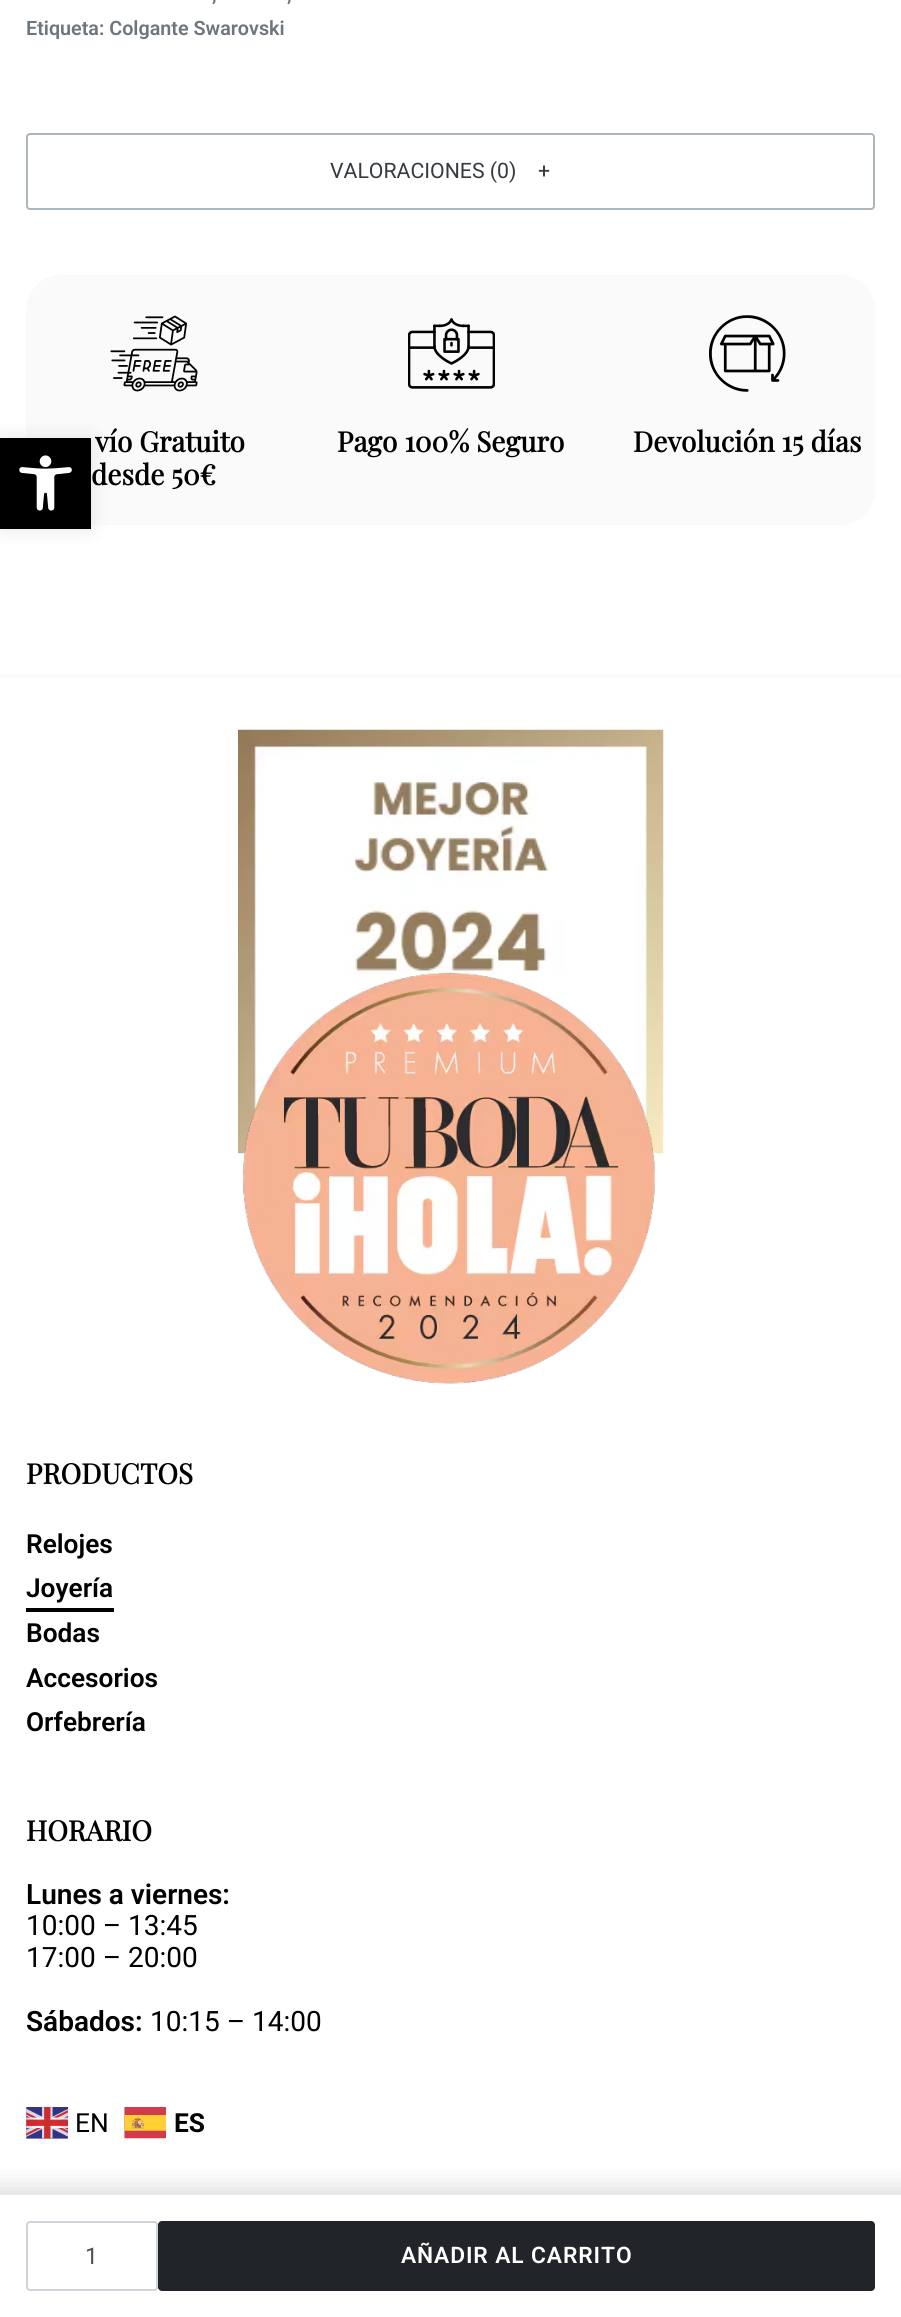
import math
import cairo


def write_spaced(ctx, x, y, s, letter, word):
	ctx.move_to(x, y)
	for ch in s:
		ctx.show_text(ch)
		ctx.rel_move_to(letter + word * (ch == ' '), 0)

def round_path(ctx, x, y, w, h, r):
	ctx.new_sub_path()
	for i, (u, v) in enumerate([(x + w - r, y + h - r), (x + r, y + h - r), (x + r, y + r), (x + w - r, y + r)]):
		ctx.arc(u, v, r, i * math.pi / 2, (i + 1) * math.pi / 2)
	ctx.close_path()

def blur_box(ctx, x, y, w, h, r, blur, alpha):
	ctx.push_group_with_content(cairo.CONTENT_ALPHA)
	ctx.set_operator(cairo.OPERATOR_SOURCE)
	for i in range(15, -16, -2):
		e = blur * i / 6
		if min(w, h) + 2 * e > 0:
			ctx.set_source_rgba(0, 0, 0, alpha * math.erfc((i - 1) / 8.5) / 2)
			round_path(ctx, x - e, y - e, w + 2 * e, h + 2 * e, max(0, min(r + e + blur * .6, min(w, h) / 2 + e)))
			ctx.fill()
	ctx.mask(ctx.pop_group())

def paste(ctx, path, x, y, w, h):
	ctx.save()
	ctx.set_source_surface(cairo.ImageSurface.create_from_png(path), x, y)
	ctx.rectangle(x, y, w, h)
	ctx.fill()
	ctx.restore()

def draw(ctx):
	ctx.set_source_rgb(1, 1, 1)
	ctx.paint()
	ctx.select_font_face('Roboto SemiBold')
	ctx.set_font_size(19.75)
	ctx.set_source_rgb(0.427, 0.459, 0.494)
	for x, y, s in [
		(212, 1, ','),
		(287, 1, ','),
		(26, 35, 'Etiqueta: Colgante Swarovski'),
	]:
		ctx.move_to(x, y)
		ctx.show_text(s)
	round_path(ctx, 27, 134, 847, 75, 3)
	ctx.set_source_rgb(0.678, 0.71, 0.741)
	ctx.stroke()
	ctx.select_font_face('Roboto')
	ctx.set_font_size(21.25)
	ctx.set_source_rgb(0.208, 0.231, 0.255)
	ctx.move_to(330, 178)
	ctx.show_text('VALORACIONES (0)')
	ctx.move_to(538, 178)
	ctx.show_text('+')
	ctx.set_source_rgb(0.98, 0.98, 0.98)
	round_path(ctx, 26, 275, 849, 250, 35)
	ctx.fill()
	paste(ctx, 'media/1.png', 110, 315, 88, 77)
	ctx.select_font_face('Playfair Display', cairo.FONT_SLANT_NORMAL, cairo.FONT_WEIGHT_BOLD)
	ctx.set_font_size(28)
	ctx.set_source_rgb(0, 0, 0)
	ctx.move_to(95, 452)
	ctx.show_text('vío Gratuito')
	ctx.move_to(91, 485)
	ctx.show_text('desde 50€')
	paste(ctx, 'media/2.png', 408, 318, 87, 71)
	ctx.move_to(337, 452)
	ctx.show_text('Pago 100% Seguro')
	paste(ctx, 'media/3.png', 709, 315, 77, 77)
	ctx.move_to(633, 452)
	ctx.show_text('Devolución 15 días')
	ctx.set_source_rgb(0.98, 0.98, 0.98)
	ctx.rectangle(0, 674, 901, 4)
	ctx.fill()
	paste(ctx, 'media/4.png', 238, 729, 426, 425)
	paste(ctx, 'media/5.png', 243, 972, 412, 412)
	ctx.set_source_rgb(0, 0, 0)
	ctx.move_to(26, 1484)
	ctx.show_text('PRODUCTOS')
	ctx.select_font_face('Roboto SemiBold')
	ctx.set_font_size(26.25)
	ctx.move_to(26, 1553)
	ctx.show_text('Relojes')
	ctx.move_to(26, 1597)
	ctx.show_text('Joyería')
	ctx.rectangle(26, 1608, 88, 4)
	ctx.fill()
	for x, y, s in [
		(26, 1642, 'Bodas'),
		(26, 1687, 'Accesorios'),
		(26, 1731, 'Orfebrería'),
	]:
		ctx.move_to(x, y)
		ctx.show_text(s)
	ctx.select_font_face('Playfair Display', cairo.FONT_SLANT_NORMAL, cairo.FONT_WEIGHT_BOLD)
	ctx.set_font_size(28)
	ctx.move_to(26, 1841)
	ctx.show_text('HORARIO')
	ctx.select_font_face('Roboto SemiBold')
	ctx.move_to(26, 1904)
	ctx.show_text('Lunes a viernes:')
	ctx.select_font_face('Roboto')
	ctx.move_to(26, 1935)
	ctx.show_text('10:00 – 13:45')
	ctx.move_to(26, 1967)
	ctx.show_text('17:00 – 20:00')
	ctx.select_font_face('Roboto SemiBold')
	ctx.move_to(26, 2031)
	ctx.show_text('Sábados:')
	ctx.select_font_face('Roboto')
	ctx.move_to(150, 2031)
	ctx.show_text('10:15 – 14:00')
	paste(ctx, 'media/6.png', 26, 2107, 42, 32)
	ctx.set_font_size(26.25)
	ctx.move_to(75, 2132)
	ctx.show_text('EN')
	paste(ctx, 'media/7.png', 124, 2107, 42, 32)
	ctx.select_font_face('Roboto', cairo.FONT_SLANT_NORMAL, cairo.FONT_WEIGHT_BOLD)
	ctx.move_to(174, 2132)
	ctx.show_text('ES')
	ctx.set_source_rgb(0, 0, 0)
	blur_box(ctx, 0, 438, 91, 91, 0, 9, 0.1)
	ctx.set_source_rgb(0, 0, 0)
	ctx.rectangle(0, 438, 91, 91)
	ctx.fill()
	paste(ctx, 'media/8.png', 19, 455, 53, 56)
	ctx.set_source_rgb(0, 0, 0)
	blur_box(ctx, -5, 2189, 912, 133, 0, 13, 0.15)
	ctx.set_source_rgb(1, 1, 1)
	ctx.rectangle(0, 2195, 901, 122)
	ctx.fill()
	round_path(ctx, 27, 2222, 130, 68, 3)
	ctx.set_source_rgb(0.808, 0.831, 0.855)
	ctx.stroke()
	ctx.select_font_face('Roboto')
	ctx.set_font_size(23)
	ctx.set_source_rgb(0.282, 0.31, 0.337)
	ctx.move_to(85, 2264)
	ctx.show_text('1')
	ctx.set_source_rgb(0.129, 0.145, 0.161)
	round_path(ctx, 158, 2221, 717, 70, 4)
	ctx.fill()
	ctx.select_font_face('Roboto SemiBold')
	ctx.set_font_size(22.75)
	ctx.set_source_rgb(1, 1, 1)
	write_spaced(ctx, 401, 2263, 'AÑADIR AL CARRITO', 0.9, 0)


surface = cairo.ImageSurface(cairo.FORMAT_RGB24, 901, 2317)
ctx = cairo.Context(surface)
options = cairo.FontOptions()
options.set_hint_metrics(cairo.HINT_METRICS_OFF)
options.set_hint_style(cairo.HINT_STYLE_NONE)
ctx.set_font_options(options)
ctx.set_miter_limit(4)
draw(ctx)
surface.write_to_png('image.png')
